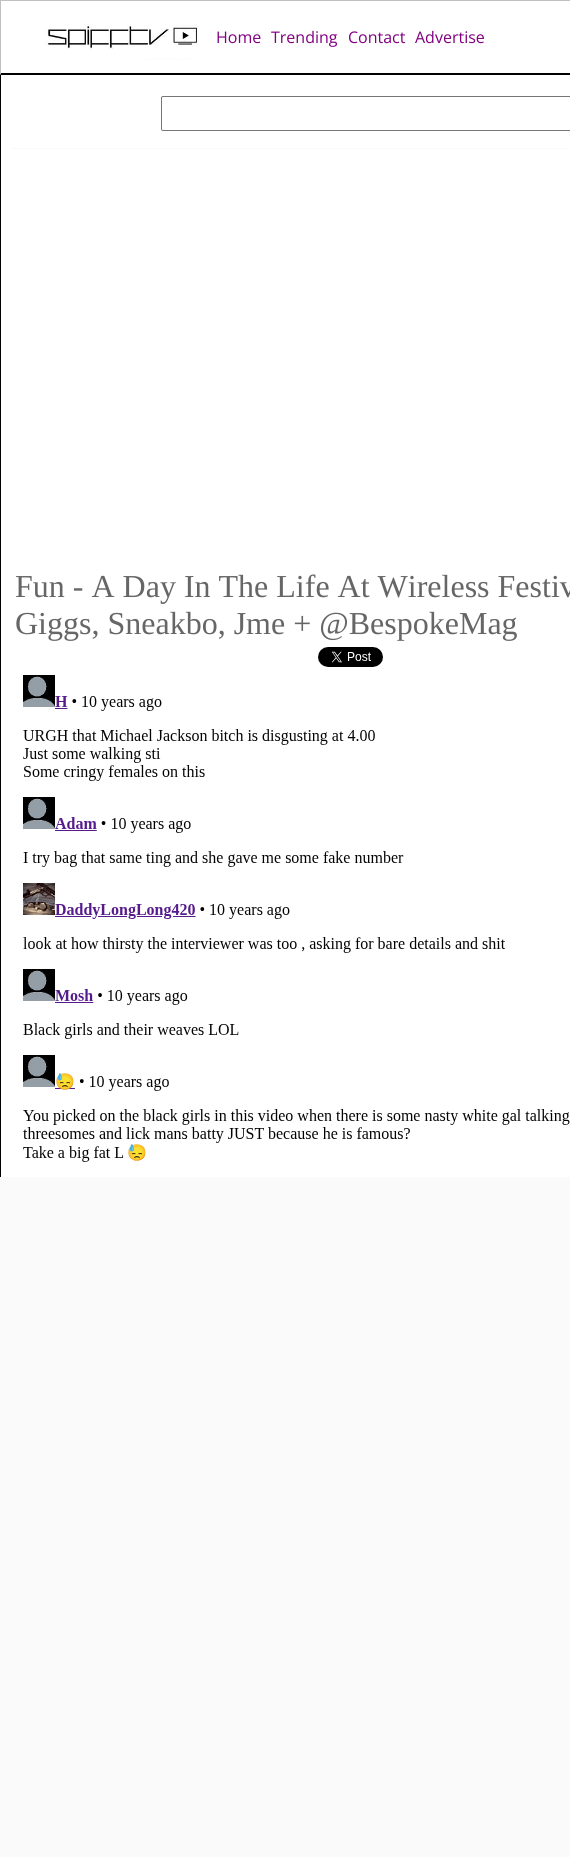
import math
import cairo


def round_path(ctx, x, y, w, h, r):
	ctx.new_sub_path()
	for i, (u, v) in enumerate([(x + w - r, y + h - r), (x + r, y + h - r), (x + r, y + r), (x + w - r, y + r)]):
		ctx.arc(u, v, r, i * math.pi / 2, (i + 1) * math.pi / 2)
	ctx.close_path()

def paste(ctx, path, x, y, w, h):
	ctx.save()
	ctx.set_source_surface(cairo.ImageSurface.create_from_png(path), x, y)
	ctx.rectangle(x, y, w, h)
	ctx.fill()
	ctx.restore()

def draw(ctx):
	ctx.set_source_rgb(0.98, 0.98, 0.98)
	ctx.paint()
	ctx.set_source_rgb(1, 1, 1)
	ctx.rectangle(1, 1, 569, 72)
	ctx.fill()
	ctx.set_source_rgb(0.753, 0.753, 0.753)
	ctx.rectangle(0, 0, 570, 1)
	ctx.fill()
	ctx.set_source_rgb(0, 0, 0)
	ctx.new_path()
	ctx.move_to(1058, 75)
	ctx.line_to(0, 75)
	ctx.line_to(1, 73)
	ctx.line_to(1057, 73)
	ctx.close_path()
	ctx.fill()
	ctx.set_source_rgb(0.753, 0.753, 0.753)
	ctx.new_path()
	ctx.move_to(0, 75)
	ctx.line_to(0, 0)
	ctx.line_to(1, 1)
	ctx.line_to(1, 73)
	ctx.close_path()
	ctx.fill()
	paste(ctx, 'media/1.png', 45, 24, 154, 36)
	ctx.select_font_face('Open Sans')
	ctx.set_font_size(16)
	ctx.set_source_rgb(0.502, 0, 0.502)
	for x, y, s in [
		(216, 43, 'Home'),
		(271, 43, 'Trending'),
		(348, 43, 'Contact'),
		(415, 43, 'Advertise'),
	]:
		ctx.move_to(x, y)
		ctx.show_text(s)
	ctx.set_source_rgb(1, 1, 1)
	ctx.rectangle(1, 75, 569, 1102)
	ctx.fill()
	ctx.set_source_rgb(0, 0, 0)
	ctx.rectangle(0, 75, 1, 1102)
	ctx.fill()
	ctx.set_source_rgb(0.98, 0.98, 0.98)
	ctx.rectangle(11, 148, 559, 1)
	ctx.fill()
	round_path(ctx, 161.5, 96.5, 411, 34, 1.5)
	ctx.set_source_rgb(0.463, 0.463, 0.463)
	ctx.set_line_width(1)
	ctx.stroke()
	ctx.select_font_face('Liberation Serif')
	ctx.set_font_size(32)
	ctx.set_source_rgb(0.4, 0.4, 0.4)
	ctx.move_to(15, 597)
	ctx.show_text('Fun - A Day In The Life At Wireless Festiv')
	ctx.move_to(15, 634)
	ctx.show_text('Giggs, Sneakbo, Jme + @BespokeMag')
	paste(ctx, 'media/2.png', 318, 647, 65, 20)
	paste(ctx, 'media/3.png', 23, 675, 547, 487)


surface = cairo.ImageSurface(cairo.FORMAT_RGB24, 570, 1857)
ctx = cairo.Context(surface)
options = cairo.FontOptions()
options.set_hint_metrics(cairo.HINT_METRICS_OFF)
options.set_hint_style(cairo.HINT_STYLE_NONE)
ctx.set_font_options(options)
ctx.set_miter_limit(4)
draw(ctx)
surface.write_to_png('image.png')
